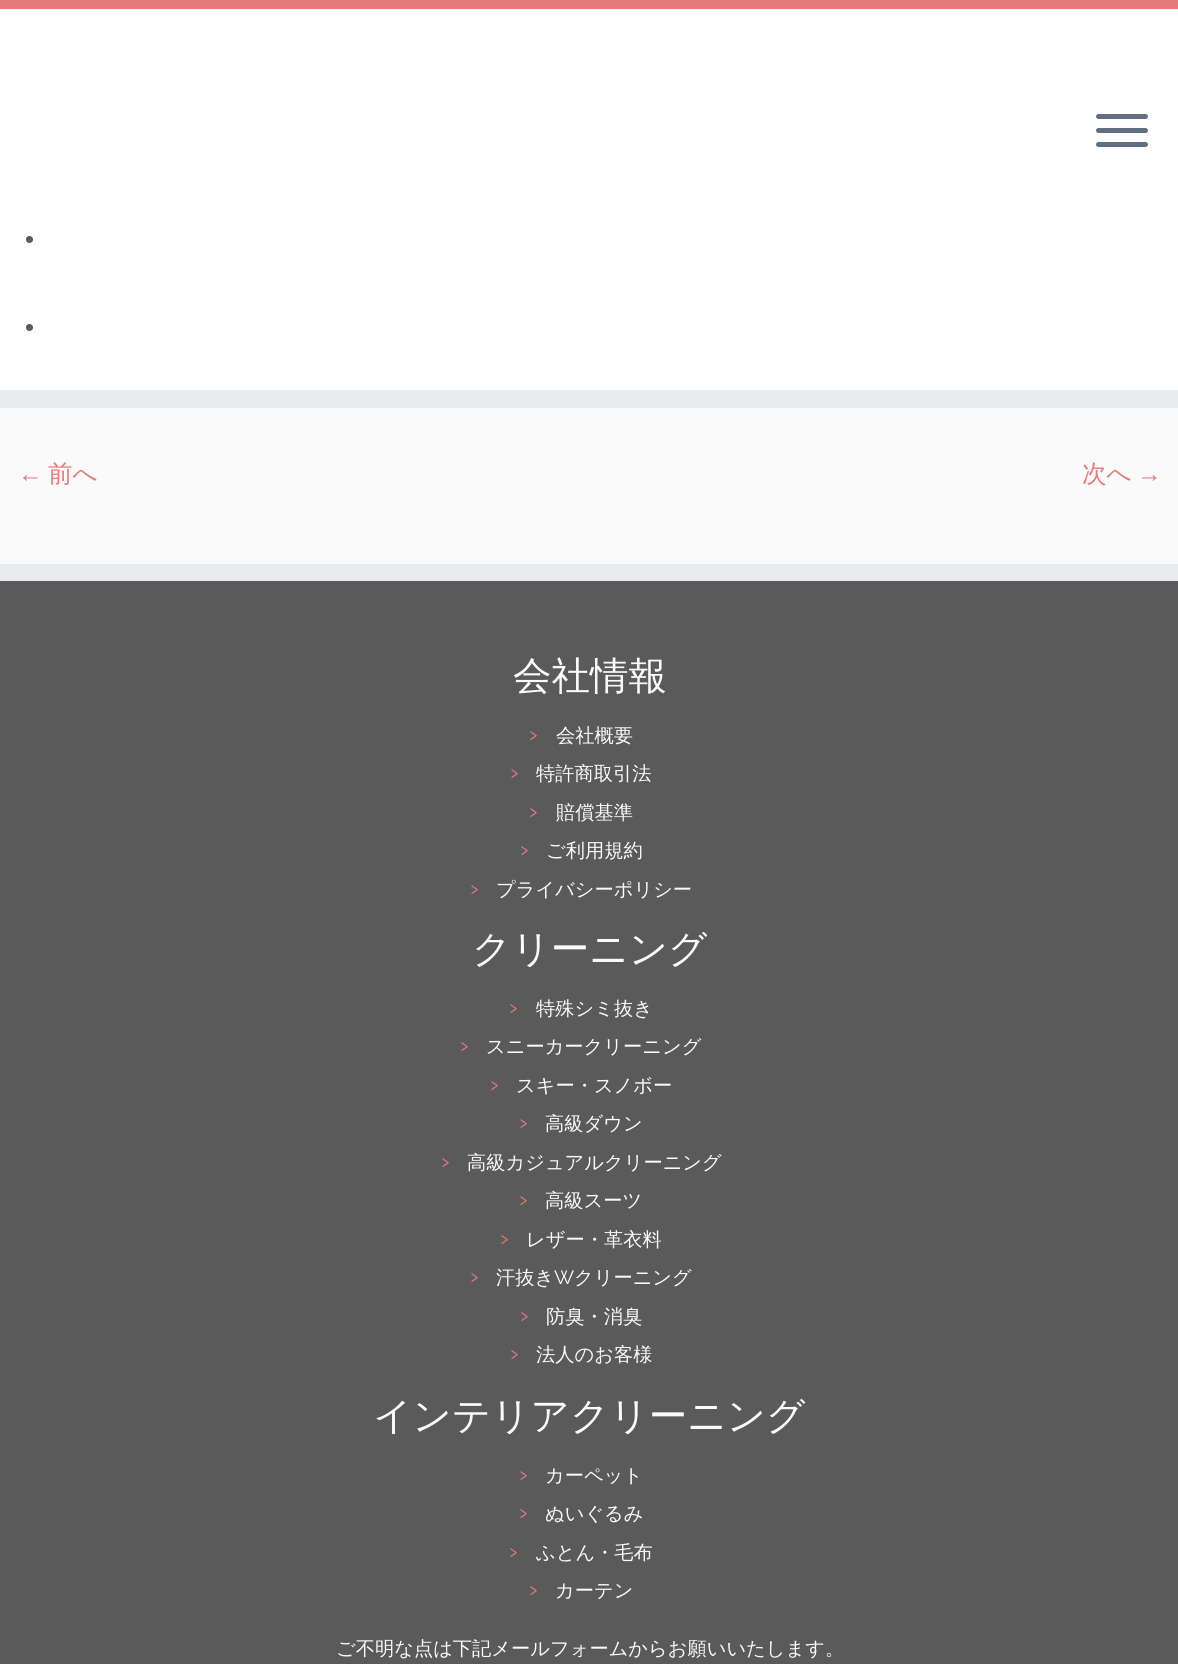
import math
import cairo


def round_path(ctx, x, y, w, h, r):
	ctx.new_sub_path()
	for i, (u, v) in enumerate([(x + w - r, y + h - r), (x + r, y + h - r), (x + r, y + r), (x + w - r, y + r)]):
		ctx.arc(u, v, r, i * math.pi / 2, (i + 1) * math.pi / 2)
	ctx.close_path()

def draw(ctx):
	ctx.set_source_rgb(0.98, 0.98, 0.98)
	ctx.paint()
	ctx.set_source_rgb(1, 1, 1)
	ctx.rectangle(0, 9, 1178, 381)
	ctx.fill()
	ctx.set_source_rgb(0.906, 0.475, 0.478)
	ctx.rectangle(0, 0, 1178, 9)
	ctx.fill()
	ctx.set_source_rgb(0.914, 0.918, 0.933)
	ctx.rectangle(0, 390, 1178, 18)
	ctx.fill()
	ctx.set_source_rgb(0.373, 0.435, 0.506)
	round_path(ctx, 1096, 114, 52, 5, 2.5)
	ctx.fill()
	round_path(ctx, 1096, 128, 52, 5, 2.5)
	ctx.fill()
	round_path(ctx, 1096, 142, 52, 5, 2.5)
	ctx.fill()
	ctx.set_source_rgb(0.353, 0.353, 0.353)
	ctx.arc(29.5, 239.5, 3.5, 0, 2 * math.pi)
	ctx.fill()
	ctx.arc(29.5, 327.5, 3.5, 0, 2 * math.pi)
	ctx.fill()
	ctx.select_font_face('Liberation Serif')
	ctx.set_font_size(24.5)
	ctx.set_source_rgb(0.906, 0.475, 0.478)
	ctx.move_to(18, 482)
	ctx.show_text('←')
	ctx.select_font_face('WenQuanYi Zen Hei Medium')
	ctx.move_to(48, 482)
	ctx.show_text('前へ')
	ctx.move_to(1082, 482)
	ctx.show_text('次へ')
	ctx.select_font_face('Liberation Serif')
	ctx.move_to(1137, 482)
	ctx.show_text('→')
	ctx.set_source_rgb(0.353, 0.353, 0.353)
	ctx.rectangle(0, 581, 1178, 1083)
	ctx.fill()
	ctx.set_source_rgb(0.914, 0.918, 0.933)
	ctx.rectangle(0, 564, 1178, 17)
	ctx.fill()
	ctx.select_font_face('WenQuanYi Zen Hei Medium')
	ctx.set_font_size(38.5)
	ctx.set_source_rgb(0.98, 0.98, 0.98)
	ctx.move_to(513, 689)
	ctx.show_text('会社情報')
	ctx.select_font_face('Raleway Thin')
	ctx.set_font_size(24.5)
	ctx.set_source_rgb(0.906, 0.475, 0.478)
	ctx.move_to(529, 742)
	ctx.show_text('›')
	ctx.select_font_face('WenQuanYi Zen Hei Medium')
	ctx.set_font_size(19.25)
	ctx.set_source_rgb(0.98, 0.98, 0.98)
	ctx.move_to(556, 742)
	ctx.show_text('会社概要')
	ctx.select_font_face('Raleway Thin')
	ctx.set_font_size(24.5)
	ctx.set_source_rgb(0.906, 0.475, 0.478)
	ctx.move_to(510, 780)
	ctx.show_text('›')
	ctx.select_font_face('WenQuanYi Zen Hei Medium')
	ctx.set_font_size(19.25)
	ctx.set_source_rgb(0.98, 0.98, 0.98)
	ctx.move_to(536, 780)
	ctx.show_text('特許商取引法')
	ctx.select_font_face('Raleway Thin')
	ctx.set_font_size(24.5)
	ctx.set_source_rgb(0.906, 0.475, 0.478)
	ctx.move_to(529, 819)
	ctx.show_text('›')
	ctx.select_font_face('WenQuanYi Zen Hei Medium')
	ctx.set_font_size(19.25)
	ctx.set_source_rgb(0.98, 0.98, 0.98)
	ctx.move_to(556, 819)
	ctx.show_text('賠償基準')
	ctx.select_font_face('Raleway Thin')
	ctx.set_font_size(24.5)
	ctx.set_source_rgb(0.906, 0.475, 0.478)
	ctx.move_to(520, 857)
	ctx.show_text('›')
	ctx.select_font_face('WenQuanYi Zen Hei Medium')
	ctx.set_font_size(19.25)
	ctx.set_source_rgb(0.98, 0.98, 0.98)
	ctx.move_to(546, 857)
	ctx.show_text('ご利用規約')
	ctx.select_font_face('Raleway Thin')
	ctx.set_font_size(24.5)
	ctx.set_source_rgb(0.906, 0.475, 0.478)
	ctx.move_to(470, 896)
	ctx.show_text('›')
	ctx.select_font_face('WenQuanYi Zen Hei Medium')
	ctx.set_font_size(19.25)
	ctx.set_source_rgb(0.98, 0.98, 0.98)
	ctx.move_to(496, 896)
	ctx.show_text('プライバシーポリシー')
	ctx.set_font_size(38.5)
	ctx.move_to(472, 962)
	ctx.show_text('クリーニング')
	ctx.select_font_face('Raleway Thin')
	ctx.set_font_size(24.5)
	ctx.set_source_rgb(0.906, 0.475, 0.478)
	ctx.move_to(509, 1015)
	ctx.show_text('›')
	ctx.select_font_face('WenQuanYi Zen Hei Medium')
	ctx.set_font_size(19.25)
	ctx.set_source_rgb(0.98, 0.98, 0.98)
	ctx.move_to(536, 1015)
	ctx.show_text('特殊シミ抜き')
	ctx.select_font_face('Raleway Thin')
	ctx.set_font_size(24.5)
	ctx.set_source_rgb(0.906, 0.475, 0.478)
	ctx.move_to(460, 1053)
	ctx.show_text('›')
	ctx.select_font_face('WenQuanYi Zen Hei Medium')
	ctx.set_font_size(19.25)
	ctx.set_source_rgb(0.98, 0.98, 0.98)
	ctx.move_to(486, 1053)
	ctx.show_text('スニーカークリーニング')
	ctx.select_font_face('Raleway Thin')
	ctx.set_font_size(24.5)
	ctx.set_source_rgb(0.906, 0.475, 0.478)
	ctx.move_to(490, 1092)
	ctx.show_text('›')
	ctx.select_font_face('WenQuanYi Zen Hei Medium')
	ctx.set_font_size(19.25)
	ctx.set_source_rgb(0.98, 0.98, 0.98)
	ctx.move_to(516, 1092)
	ctx.show_text('スキー・スノボー')
	ctx.select_font_face('Raleway Thin')
	ctx.set_font_size(24.5)
	ctx.set_source_rgb(0.906, 0.475, 0.478)
	ctx.move_to(519, 1130)
	ctx.show_text('›')
	ctx.select_font_face('WenQuanYi Zen Hei Medium')
	ctx.set_font_size(19.25)
	ctx.set_source_rgb(0.98, 0.98, 0.98)
	ctx.move_to(545, 1130)
	ctx.show_text('高級ダウン')
	ctx.select_font_face('Raleway Thin')
	ctx.set_font_size(24.5)
	ctx.set_source_rgb(0.906, 0.475, 0.478)
	ctx.move_to(441, 1169)
	ctx.show_text('›')
	ctx.select_font_face('WenQuanYi Zen Hei Medium')
	ctx.set_font_size(19.25)
	ctx.set_source_rgb(0.98, 0.98, 0.98)
	ctx.move_to(467, 1169)
	ctx.show_text('高級カジュアルクリーニング')
	ctx.select_font_face('Raleway Thin')
	ctx.set_font_size(24.5)
	ctx.set_source_rgb(0.906, 0.475, 0.478)
	ctx.move_to(519, 1207)
	ctx.show_text('›')
	ctx.select_font_face('WenQuanYi Zen Hei Medium')
	ctx.set_font_size(19.25)
	ctx.set_source_rgb(0.98, 0.98, 0.98)
	ctx.move_to(545, 1207)
	ctx.show_text('高級スーツ')
	ctx.select_font_face('Raleway Thin')
	ctx.set_font_size(24.5)
	ctx.set_source_rgb(0.906, 0.475, 0.478)
	ctx.move_to(500, 1246)
	ctx.show_text('›')
	ctx.select_font_face('WenQuanYi Zen Hei Medium')
	ctx.set_font_size(19.25)
	ctx.set_source_rgb(0.98, 0.98, 0.98)
	ctx.move_to(526, 1246)
	ctx.show_text('レザー・革衣料')
	ctx.select_font_face('Raleway Thin')
	ctx.set_font_size(24.5)
	ctx.set_source_rgb(0.906, 0.475, 0.478)
	ctx.move_to(470, 1284)
	ctx.show_text('›')
	ctx.select_font_face('WenQuanYi Zen Hei Medium')
	ctx.set_font_size(19.25)
	ctx.set_source_rgb(0.98, 0.98, 0.98)
	ctx.move_to(496, 1284)
	ctx.show_text('汗抜き')
	ctx.select_font_face('Raleway Thin')
	ctx.move_to(554, 1284)
	ctx.show_text('W')
	ctx.select_font_face('WenQuanYi Zen Hei Medium')
	ctx.move_to(574, 1284)
	ctx.show_text('クリーニング')
	ctx.select_font_face('Raleway Thin')
	ctx.set_font_size(24.5)
	ctx.set_source_rgb(0.906, 0.475, 0.478)
	ctx.move_to(520, 1323)
	ctx.show_text('›')
	ctx.select_font_face('WenQuanYi Zen Hei Medium')
	ctx.set_font_size(19.25)
	ctx.set_source_rgb(0.98, 0.98, 0.98)
	ctx.move_to(546, 1323)
	ctx.show_text('防臭・消臭')
	ctx.select_font_face('Raleway Thin')
	ctx.set_font_size(24.5)
	ctx.set_source_rgb(0.906, 0.475, 0.478)
	ctx.move_to(510, 1361)
	ctx.show_text('›')
	ctx.select_font_face('WenQuanYi Zen Hei Medium')
	ctx.set_font_size(19.25)
	ctx.set_source_rgb(0.98, 0.98, 0.98)
	ctx.move_to(536, 1361)
	ctx.show_text('法人のお客様')
	ctx.set_font_size(38.5)
	ctx.move_to(373, 1429)
	ctx.show_text('インテリアクリーニング')
	ctx.select_font_face('Raleway Thin')
	ctx.set_font_size(24.5)
	ctx.set_source_rgb(0.906, 0.475, 0.478)
	ctx.move_to(519, 1482)
	ctx.show_text('›')
	ctx.select_font_face('WenQuanYi Zen Hei Medium')
	ctx.set_font_size(19.25)
	ctx.set_source_rgb(0.98, 0.98, 0.98)
	ctx.move_to(545, 1482)
	ctx.show_text('カーペット')
	ctx.select_font_face('Raleway Thin')
	ctx.set_font_size(24.5)
	ctx.set_source_rgb(0.906, 0.475, 0.478)
	ctx.move_to(519, 1520)
	ctx.show_text('›')
	ctx.select_font_face('WenQuanYi Zen Hei Medium')
	ctx.set_font_size(19.25)
	ctx.set_source_rgb(0.98, 0.98, 0.98)
	ctx.move_to(545, 1520)
	ctx.show_text('ぬいぐるみ')
	ctx.select_font_face('Raleway Thin')
	ctx.set_font_size(24.5)
	ctx.set_source_rgb(0.906, 0.475, 0.478)
	ctx.move_to(509, 1559)
	ctx.show_text('›')
	ctx.select_font_face('WenQuanYi Zen Hei Medium')
	ctx.set_font_size(19.25)
	ctx.set_source_rgb(0.98, 0.98, 0.98)
	ctx.move_to(536, 1559)
	ctx.show_text('ふとん・毛布')
	ctx.select_font_face('Raleway Thin')
	ctx.set_font_size(24.5)
	ctx.set_source_rgb(0.906, 0.475, 0.478)
	ctx.move_to(529, 1597)
	ctx.show_text('›')
	ctx.select_font_face('WenQuanYi Zen Hei Medium')
	ctx.set_font_size(19.25)
	ctx.set_source_rgb(0.98, 0.98, 0.98)
	ctx.move_to(555, 1597)
	ctx.show_text('カーテン')
	ctx.move_to(336, 1655)
	ctx.show_text('ご不明な点は下記メールフォームからお願いいたします。')


surface = cairo.ImageSurface(cairo.FORMAT_RGB24, 1178, 1664)
ctx = cairo.Context(surface)
options = cairo.FontOptions()
options.set_hint_metrics(cairo.HINT_METRICS_OFF)
options.set_hint_style(cairo.HINT_STYLE_NONE)
ctx.set_font_options(options)
ctx.set_miter_limit(4)
draw(ctx)
surface.write_to_png('image.png')
